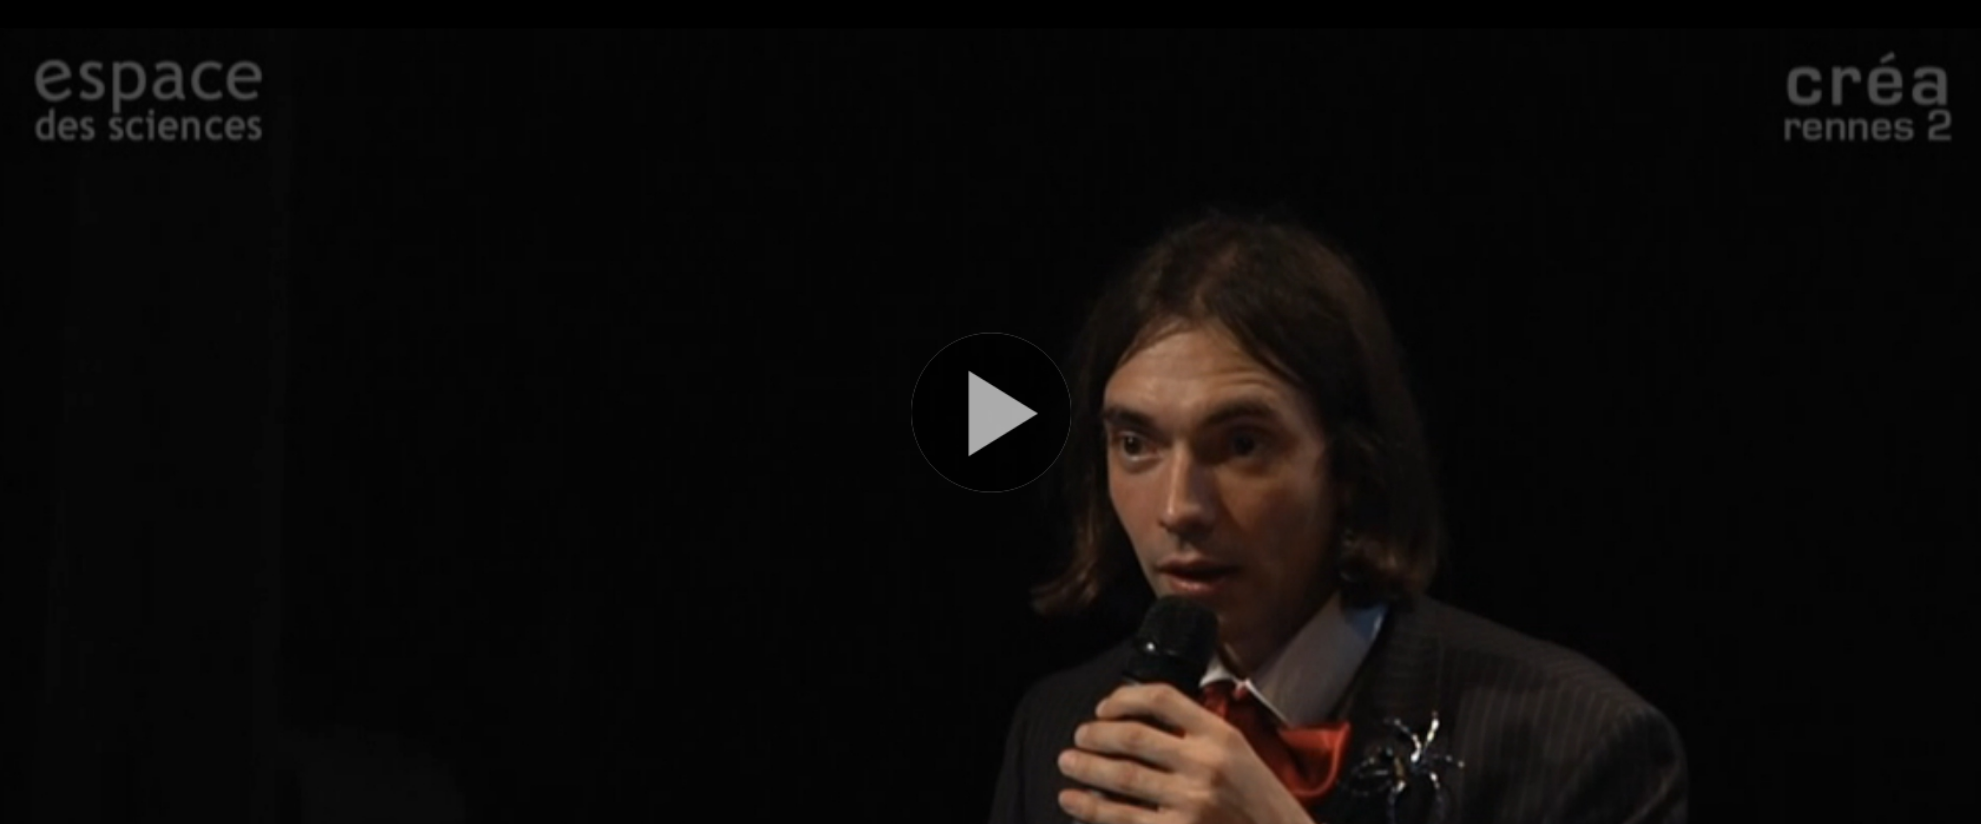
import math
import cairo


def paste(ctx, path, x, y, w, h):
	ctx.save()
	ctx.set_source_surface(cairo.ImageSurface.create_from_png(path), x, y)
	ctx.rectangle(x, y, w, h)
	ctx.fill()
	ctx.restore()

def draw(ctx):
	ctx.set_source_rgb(0, 0, 0)
	ctx.paint()
	paste(ctx, 'media/1.png', 0, 28, 1981, 796)
	paste(ctx, 'media/2.png', 911, 332, 161, 161)


surface = cairo.ImageSurface(cairo.FORMAT_RGB24, 1981, 824)
ctx = cairo.Context(surface)
options = cairo.FontOptions()
options.set_hint_metrics(cairo.HINT_METRICS_OFF)
options.set_hint_style(cairo.HINT_STYLE_NONE)
ctx.set_font_options(options)
ctx.set_miter_limit(4)
draw(ctx)
surface.write_to_png('image.png')
